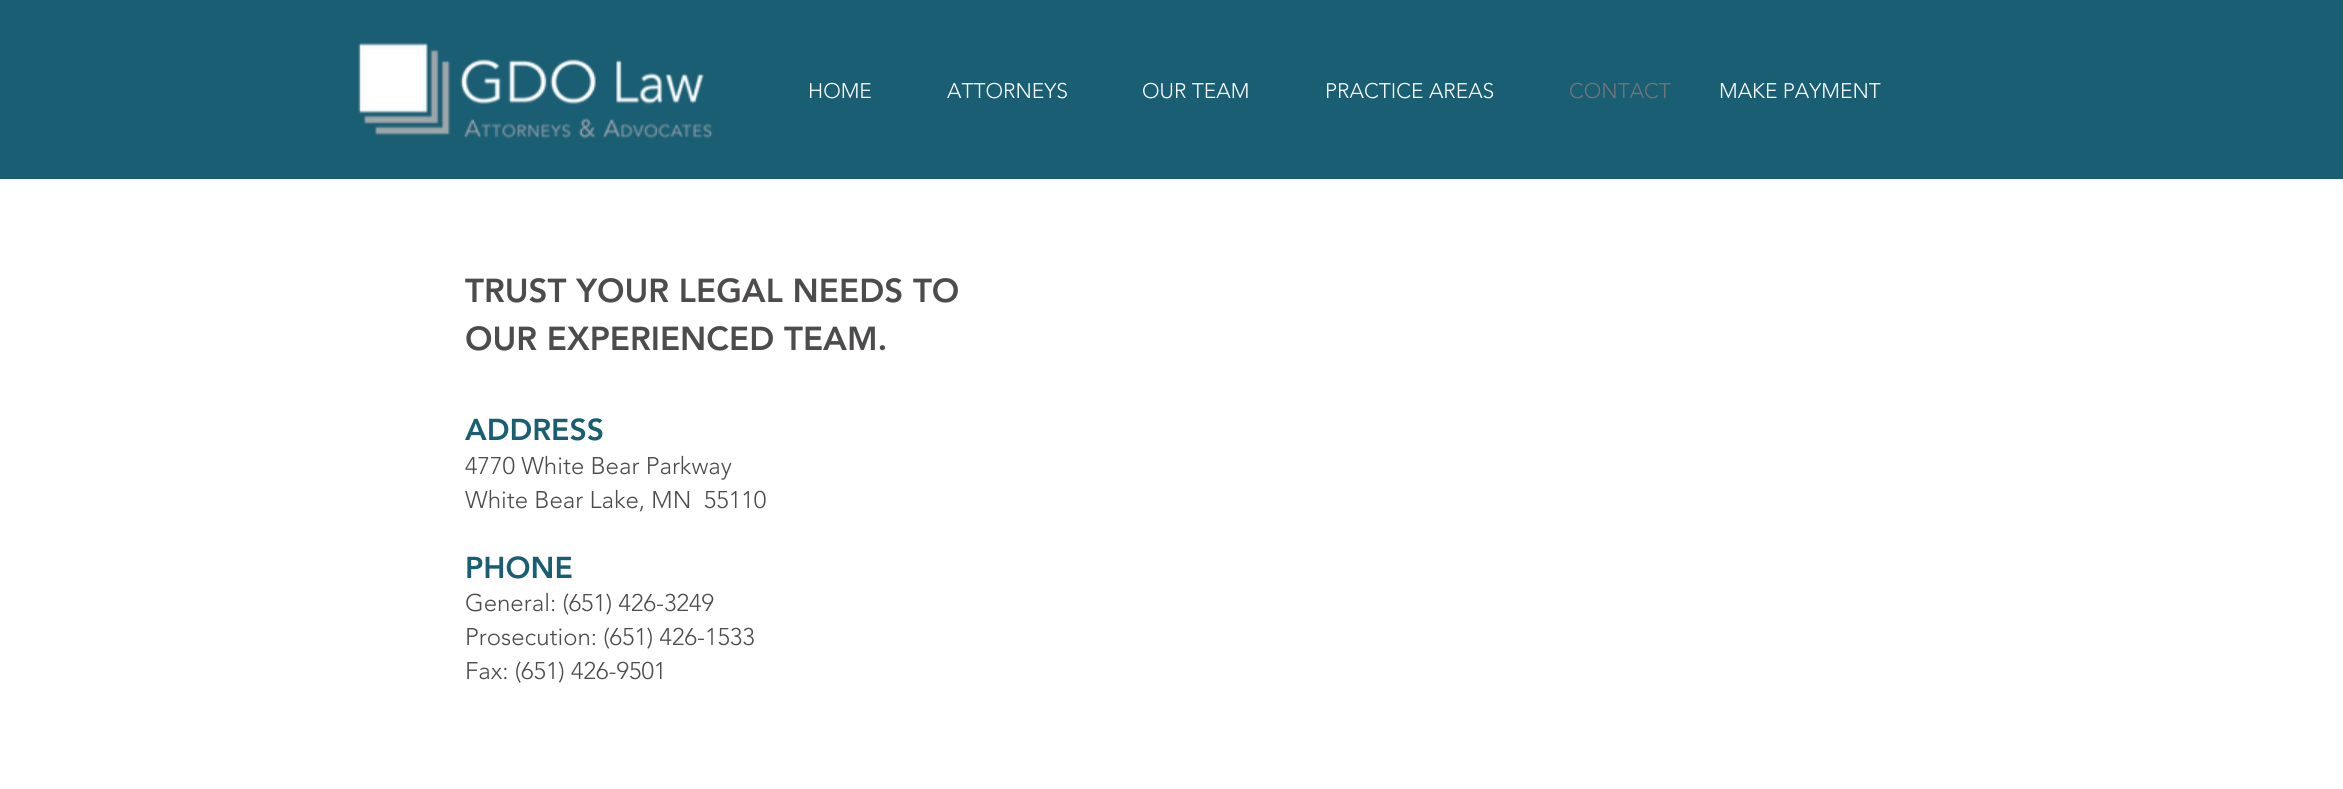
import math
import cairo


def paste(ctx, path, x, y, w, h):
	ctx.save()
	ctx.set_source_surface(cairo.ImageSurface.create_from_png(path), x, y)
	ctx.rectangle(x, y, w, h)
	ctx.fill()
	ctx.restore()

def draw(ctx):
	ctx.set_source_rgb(1, 1, 1)
	ctx.paint()
	ctx.set_source_rgb(0.102, 0.369, 0.451)
	ctx.rectangle(0, 0, 2343, 179)
	ctx.fill()
	paste(ctx, 'media/1.png', 358, 42, 355, 97)
	ctx.select_font_face('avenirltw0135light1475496 Light')
	ctx.set_font_size(21)
	ctx.set_source_rgb(1, 1, 1)
	for x, y, s in [
		(808, 98, 'HOME'),
		(947, 98, 'ATTORNEYS'),
		(1142, 98, 'OUR TEAM'),
		(1325, 98, 'PRACTICE AREAS'),
	]:
		ctx.move_to(x, y)
		ctx.show_text(s)
	ctx.set_source_rgb(0.459, 0.459, 0.459)
	ctx.move_to(1569, 98)
	ctx.show_text('CONTACT')
	ctx.set_source_rgb(1, 1, 1)
	ctx.move_to(1719, 98)
	ctx.show_text('MAKE PAYMENT')
	ctx.select_font_face('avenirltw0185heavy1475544 Black')
	ctx.set_font_size(33)
	ctx.set_source_rgb(0.302, 0.294, 0.294)
	ctx.move_to(465, 302)
	ctx.show_text('TRUST YOUR LEGAL NEEDS TO')
	ctx.move_to(465, 350)
	ctx.show_text('OUR EXPERIENCED TEAM.')
	ctx.set_font_size(30)
	ctx.set_source_rgb(0.102, 0.369, 0.451)
	ctx.move_to(465, 440)
	ctx.show_text('ADDRESS')
	ctx.select_font_face('avenirltw0135light1475496 Light')
	ctx.set_font_size(24)
	ctx.set_source_rgb(0.302, 0.294, 0.294)
	ctx.move_to(465, 474)
	ctx.show_text('4770 White Bear Parkway')
	ctx.move_to(465, 508)
	ctx.show_text('White Bear Lake, MN  55110')
	ctx.select_font_face('avenirltw0185heavy1475544 Black')
	ctx.set_font_size(30)
	ctx.set_source_rgb(0.102, 0.369, 0.451)
	ctx.move_to(465, 578)
	ctx.show_text('PHONE')
	ctx.select_font_face('avenirltw0135light1475496 Light')
	ctx.set_font_size(24)
	ctx.set_source_rgb(0.302, 0.294, 0.294)
	for x, y, s in [
		(465, 611, 'General: (651) 426-3249'),
		(465, 645, 'Prosecution: (651) 426-1533'),
		(465, 679, 'Fax: (651) 426-9501'),
	]:
		ctx.move_to(x, y)
		ctx.show_text(s)


surface = cairo.ImageSurface(cairo.FORMAT_RGB24, 2343, 789)
ctx = cairo.Context(surface)
options = cairo.FontOptions()
options.set_hint_metrics(cairo.HINT_METRICS_OFF)
options.set_hint_style(cairo.HINT_STYLE_NONE)
ctx.set_font_options(options)
ctx.set_miter_limit(4)
draw(ctx)
surface.write_to_png('image.png')
